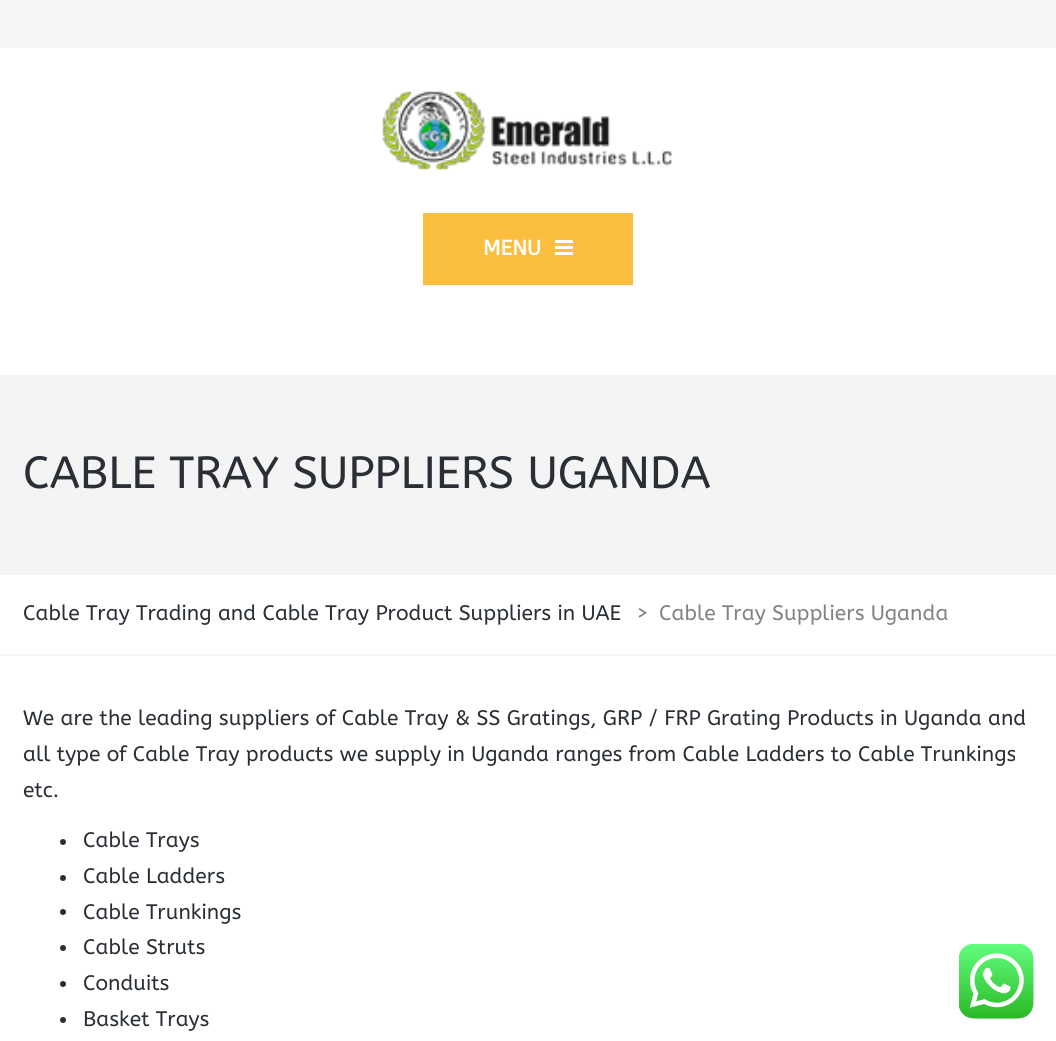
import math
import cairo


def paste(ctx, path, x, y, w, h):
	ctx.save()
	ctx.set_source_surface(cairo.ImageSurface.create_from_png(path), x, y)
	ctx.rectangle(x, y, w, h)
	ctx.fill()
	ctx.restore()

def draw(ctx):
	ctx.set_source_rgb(1, 1, 1)
	ctx.paint()
	ctx.set_source_rgb(0.961, 0.961, 0.961)
	ctx.rectangle(0, 0, 1056, 48)
	ctx.fill()
	paste(ctx, 'media/1.png', 382, 91, 290, 79)
	ctx.set_source_rgb(0.984, 0.745, 0.247)
	ctx.rectangle(423, 213, 210, 72)
	ctx.fill()
	ctx.select_font_face('ABeeZee', cairo.FONT_SLANT_NORMAL, cairo.FONT_WEIGHT_BOLD)
	ctx.set_font_size(21)
	ctx.set_source_rgb(1, 1, 1)
	ctx.move_to(483, 255)
	ctx.show_text('MENU')
	paste(ctx, 'media/2.png', 555, 240, 18, 15)
	ctx.set_source_rgb(0.957, 0.957, 0.957)
	ctx.rectangle(0, 375, 1056, 200)
	ctx.fill()
	ctx.select_font_face('ABeeZee')
	ctx.set_font_size(45)
	ctx.set_source_rgb(0.165, 0.184, 0.208)
	ctx.move_to(23, 488)
	ctx.show_text('CABLE TRAY SUPPLIERS UGANDA')
	ctx.set_source_rgb(0.961, 0.961, 0.961)
	ctx.rectangle(0, 654, 1056, 2)
	ctx.fill()
	ctx.set_font_size(21)
	ctx.set_source_rgb(0.165, 0.184, 0.208)
	ctx.move_to(23, 620)
	ctx.show_text('Cable Tray Trading and Cable Tray Product Suppliers in UAE')
	ctx.set_source_rgb(0.51, 0.51, 0.51)
	ctx.move_to(636, 620)
	ctx.show_text('>')
	ctx.move_to(659, 620)
	ctx.show_text('Cable Tray Suppliers Uganda')
	ctx.set_source_rgb(0.165, 0.184, 0.208)
	for x, y, s in [
		(23, 725, 'We are the leading suppliers of Cable Tray & SS Gratings, GRP / FRP Grating Products in Uganda and'),
		(23, 761, 'all type of Cable Tray products we supply in Uganda ranges from Cable Ladders to Cable Trunkings'),
		(23, 797, 'etc.'),
	]:
		ctx.move_to(x, y)
		ctx.show_text(s)
	ctx.new_path()
	ctx.arc(63, 842, 3, 0, 2 * math.pi)
	ctx.fill()
	ctx.move_to(83, 847)
	ctx.show_text('Cable Trays')
	ctx.new_path()
	ctx.arc(63, 878, 3, 0, 2 * math.pi)
	ctx.fill()
	ctx.move_to(83, 883)
	ctx.show_text('Cable Ladders')
	ctx.new_path()
	ctx.arc(63, 912, 3, 0, 2 * math.pi)
	ctx.fill()
	ctx.move_to(83, 919)
	ctx.show_text('Cable Trunkings')
	ctx.new_path()
	ctx.arc(63, 948, 3, 0, 2 * math.pi)
	ctx.fill()
	ctx.move_to(83, 954)
	ctx.show_text('Cable Struts')
	ctx.new_path()
	ctx.arc(63, 984, 3, 0, 2 * math.pi)
	ctx.fill()
	ctx.move_to(83, 990)
	ctx.show_text('Conduits')
	ctx.new_path()
	ctx.arc(63, 1020, 3, 0, 2 * math.pi)
	ctx.fill()
	ctx.move_to(83, 1026)
	ctx.show_text('Basket Trays')
	paste(ctx, 'media/3.png', 959, 944, 75, 75)


surface = cairo.ImageSurface(cairo.FORMAT_RGB24, 1056, 1041)
ctx = cairo.Context(surface)
options = cairo.FontOptions()
options.set_hint_metrics(cairo.HINT_METRICS_OFF)
options.set_hint_style(cairo.HINT_STYLE_NONE)
ctx.set_font_options(options)
ctx.set_miter_limit(4)
draw(ctx)
surface.write_to_png('image.png')
